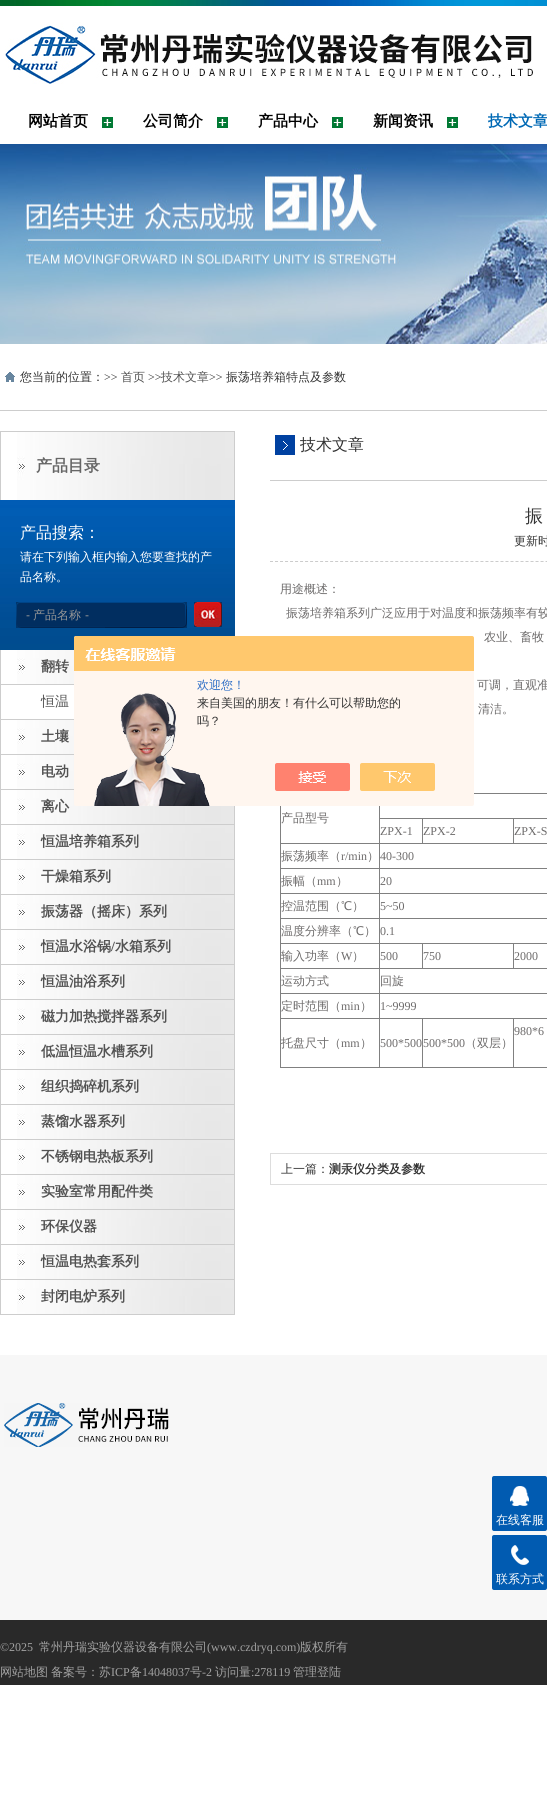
import math
import cairo


def round_path(ctx, x, y, w, h, r):
	ctx.new_sub_path()
	for i, (u, v) in enumerate([(x + w - r, y + h - r), (x + r, y + h - r), (x + r, y + r), (x + w - r, y + r)]):
		ctx.arc(u, v, r, i * math.pi / 2, (i + 1) * math.pi / 2)
	ctx.close_path()

def paste(ctx, path, x, y, w, h):
	ctx.save()
	ctx.set_source_surface(cairo.ImageSurface.create_from_png(path), x, y)
	ctx.rectangle(x, y, w, h)
	ctx.fill()
	ctx.restore()

def draw(ctx):
	ctx.set_source_rgb(1, 1, 1)
	ctx.paint()
	paste(ctx, 'media/1.png', 0, 0, 547, 6)
	paste(ctx, 'media/2.png', 5, 22, 528, 62)
	paste(ctx, 'media/3.png', 102, 117, 11, 11)
	ctx.select_font_face('WenQuanYi Zen Hei', cairo.FONT_SLANT_NORMAL, cairo.FONT_WEIGHT_BOLD)
	ctx.set_font_size(15)
	ctx.set_source_rgb(0, 0, 0)
	ctx.move_to(28, 126)
	ctx.show_text('网站首页')
	paste(ctx, 'media/3.png', 217, 117, 11, 11)
	ctx.move_to(143, 126)
	ctx.show_text('公司简介')
	paste(ctx, 'media/3.png', 332, 117, 11, 11)
	ctx.move_to(258, 126)
	ctx.show_text('产品中心')
	paste(ctx, 'media/3.png', 447, 117, 11, 11)
	ctx.move_to(373, 126)
	ctx.show_text('新闻资讯')
	ctx.set_source_rgb(0, 0.412, 0.71)
	ctx.move_to(488, 126)
	ctx.show_text('技术文章')
	paste(ctx, 'media/4.png', 0, 144, 547, 200)
	ctx.set_source_rgb(0.804, 0.804, 0.804)
	ctx.rectangle(0, 410, 547, 1)
	ctx.fill()
	paste(ctx, 'media/5.png', 5, 372, 10, 10)
	ctx.select_font_face('WenQuanYi Zen Hei Medium')
	ctx.set_font_size(12)
	ctx.set_source_rgb(0.2, 0.2, 0.2)
	ctx.move_to(20, 381)
	ctx.show_text('您当前的位置：')
	ctx.select_font_face('Liberation Serif')
	ctx.move_to(104, 381)
	ctx.show_text('>>')
	ctx.select_font_face('WenQuanYi Zen Hei Medium')
	ctx.set_source_rgb(0.322, 0.322, 0.322)
	ctx.move_to(121, 381)
	ctx.show_text('首页')
	ctx.select_font_face('Liberation Serif')
	ctx.set_source_rgb(0.2, 0.2, 0.2)
	ctx.move_to(148, 381)
	ctx.show_text('>>')
	ctx.select_font_face('WenQuanYi Zen Hei Medium')
	ctx.set_source_rgb(0.322, 0.322, 0.322)
	ctx.move_to(161, 381)
	ctx.show_text('技术文章')
	ctx.select_font_face('Liberation Serif')
	ctx.set_source_rgb(0.2, 0.2, 0.2)
	ctx.move_to(209, 381)
	ctx.show_text('>>')
	ctx.select_font_face('WenQuanYi Zen Hei Medium')
	ctx.move_to(226, 381)
	ctx.show_text('振荡培养箱特点及参数')
	paste(ctx, 'media/6.png', 17, 432, 217, 68)
	ctx.set_source_rgb(0.804, 0.804, 0.804)
	ctx.rectangle(0, 431, 235, 1)
	ctx.rectangle(234, 431, 1, 69)
	ctx.rectangle(0, 431, 1, 69)
	ctx.fill()
	ctx.select_font_face('WenQuanYi Zen Hei', cairo.FONT_SLANT_NORMAL, cairo.FONT_WEIGHT_BOLD)
	ctx.set_font_size(16)
	ctx.set_source_rgb(0.4, 0.4, 0.4)
	ctx.move_to(36, 471)
	ctx.show_text('产品目录')
	paste(ctx, 'media/7.png', 0, 500, 235, 150)
	ctx.select_font_face('WenQuanYi Zen Hei Medium')
	ctx.set_source_rgb(1, 1, 1)
	ctx.move_to(20, 538)
	ctx.show_text('产品搜索：')
	ctx.set_font_size(12)
	ctx.move_to(20, 561)
	ctx.show_text('请在下列输入框内输入您要查找的产')
	ctx.move_to(20, 581)
	ctx.show_text('品名称。')
	paste(ctx, 'media/8.png', 16, 602, 171, 26)
	ctx.select_font_face('Liberation Sans')
	ctx.set_source_rgb(0.588, 0.588, 0.588)
	ctx.move_to(26, 619)
	ctx.show_text('-')
	ctx.select_font_face('WenQuanYi Zen Hei Medium')
	ctx.move_to(33, 619)
	ctx.show_text('产品名称')
	ctx.select_font_face('Liberation Sans')
	ctx.move_to(85, 619)
	ctx.show_text('-')
	paste(ctx, 'media/9.png', 194, 602, 28, 25)
	ctx.set_source_rgb(0.804, 0.804, 0.804)
	ctx.rectangle(234, 806, 1, 509)
	ctx.fill()
	ctx.rectangle(0, 650, 1, 665)
	ctx.fill()
	paste(ctx, 'media/10.png', 17, 650, 57, 34)
	ctx.rectangle(1, 684, 73, 1)
	ctx.fill()
	ctx.select_font_face('WenQuanYi Zen Hei', cairo.FONT_SLANT_NORMAL, cairo.FONT_WEIGHT_BOLD)
	ctx.set_font_size(14)
	ctx.set_source_rgb(0.322, 0.322, 0.322)
	ctx.move_to(41, 671)
	ctx.show_text('翻转')
	ctx.set_source_rgb(0.804, 0.804, 0.804)
	ctx.rectangle(1, 719, 73, 1)
	ctx.fill()
	ctx.select_font_face('WenQuanYi Zen Hei Medium')
	ctx.set_source_rgb(0.322, 0.322, 0.322)
	ctx.move_to(41, 706)
	ctx.show_text('恒温')
	paste(ctx, 'media/10.png', 17, 720, 57, 34)
	ctx.set_source_rgb(0.804, 0.804, 0.804)
	ctx.rectangle(1, 754, 73, 1)
	ctx.fill()
	ctx.select_font_face('WenQuanYi Zen Hei', cairo.FONT_SLANT_NORMAL, cairo.FONT_WEIGHT_BOLD)
	ctx.set_source_rgb(0.322, 0.322, 0.322)
	ctx.move_to(41, 741)
	ctx.show_text('土壤')
	paste(ctx, 'media/10.png', 17, 755, 57, 34)
	ctx.set_source_rgb(0.804, 0.804, 0.804)
	ctx.rectangle(1, 789, 73, 1)
	ctx.fill()
	ctx.set_source_rgb(0.322, 0.322, 0.322)
	ctx.move_to(41, 776)
	ctx.show_text('电动')
	paste(ctx, 'media/11.png', 17, 790, 217, 34)
	ctx.set_source_rgb(0.804, 0.804, 0.804)
	ctx.rectangle(1, 824, 233, 1)
	ctx.fill()
	ctx.set_source_rgb(0.322, 0.322, 0.322)
	ctx.move_to(41, 811)
	ctx.show_text('离心')
	paste(ctx, 'media/11.png', 17, 825, 217, 34)
	ctx.set_source_rgb(0.804, 0.804, 0.804)
	ctx.rectangle(1, 859, 233, 1)
	ctx.fill()
	ctx.set_source_rgb(0.322, 0.322, 0.322)
	ctx.move_to(41, 846)
	ctx.show_text('恒温培养箱系列')
	paste(ctx, 'media/11.png', 17, 860, 217, 34)
	ctx.set_source_rgb(0.804, 0.804, 0.804)
	ctx.rectangle(1, 894, 233, 1)
	ctx.fill()
	ctx.set_source_rgb(0.322, 0.322, 0.322)
	ctx.move_to(41, 881)
	ctx.show_text('干燥箱系列')
	paste(ctx, 'media/11.png', 17, 895, 217, 34)
	ctx.set_source_rgb(0.804, 0.804, 0.804)
	ctx.rectangle(1, 929, 233, 1)
	ctx.fill()
	ctx.set_source_rgb(0.322, 0.322, 0.322)
	ctx.move_to(41, 916)
	ctx.show_text('振荡器（摇床）系列')
	paste(ctx, 'media/11.png', 17, 930, 217, 34)
	ctx.set_source_rgb(0.804, 0.804, 0.804)
	ctx.rectangle(1, 964, 233, 1)
	ctx.fill()
	ctx.set_source_rgb(0.322, 0.322, 0.322)
	ctx.move_to(41, 951)
	ctx.show_text('恒温水浴锅')
	ctx.select_font_face('Liberation Serif', cairo.FONT_SLANT_NORMAL, cairo.FONT_WEIGHT_BOLD)
	ctx.move_to(111, 951)
	ctx.show_text('/')
	ctx.select_font_face('WenQuanYi Zen Hei', cairo.FONT_SLANT_NORMAL, cairo.FONT_WEIGHT_BOLD)
	ctx.move_to(115, 951)
	ctx.show_text('水箱系列')
	paste(ctx, 'media/11.png', 17, 965, 217, 34)
	ctx.set_source_rgb(0.804, 0.804, 0.804)
	ctx.rectangle(1, 999, 233, 1)
	ctx.fill()
	ctx.set_source_rgb(0.322, 0.322, 0.322)
	ctx.move_to(41, 986)
	ctx.show_text('恒温油浴系列')
	paste(ctx, 'media/11.png', 17, 1000, 217, 34)
	ctx.set_source_rgb(0.804, 0.804, 0.804)
	ctx.rectangle(1, 1034, 233, 1)
	ctx.fill()
	ctx.set_source_rgb(0.322, 0.322, 0.322)
	ctx.move_to(41, 1021)
	ctx.show_text('磁力加热搅拌器系列')
	paste(ctx, 'media/11.png', 17, 1035, 217, 34)
	ctx.set_source_rgb(0.804, 0.804, 0.804)
	ctx.rectangle(1, 1069, 233, 1)
	ctx.fill()
	ctx.set_source_rgb(0.322, 0.322, 0.322)
	ctx.move_to(41, 1056)
	ctx.show_text('低温恒温水槽系列')
	paste(ctx, 'media/11.png', 17, 1070, 217, 34)
	ctx.set_source_rgb(0.804, 0.804, 0.804)
	ctx.rectangle(1, 1104, 233, 1)
	ctx.fill()
	ctx.set_source_rgb(0.322, 0.322, 0.322)
	ctx.move_to(41, 1091)
	ctx.show_text('组织捣碎机系列')
	paste(ctx, 'media/11.png', 17, 1105, 217, 34)
	ctx.set_source_rgb(0.804, 0.804, 0.804)
	ctx.rectangle(1, 1139, 233, 1)
	ctx.fill()
	ctx.set_source_rgb(0.322, 0.322, 0.322)
	ctx.move_to(41, 1126)
	ctx.show_text('蒸馏水器系列')
	paste(ctx, 'media/11.png', 17, 1140, 217, 34)
	ctx.set_source_rgb(0.804, 0.804, 0.804)
	ctx.rectangle(1, 1174, 233, 1)
	ctx.fill()
	ctx.set_source_rgb(0.322, 0.322, 0.322)
	ctx.move_to(41, 1161)
	ctx.show_text('不锈钢电热板系列')
	paste(ctx, 'media/11.png', 17, 1175, 217, 34)
	ctx.set_source_rgb(0.804, 0.804, 0.804)
	ctx.rectangle(1, 1209, 233, 1)
	ctx.fill()
	ctx.set_source_rgb(0.322, 0.322, 0.322)
	ctx.move_to(41, 1196)
	ctx.show_text('实验室常用配件类')
	paste(ctx, 'media/11.png', 17, 1210, 217, 34)
	ctx.set_source_rgb(0.804, 0.804, 0.804)
	ctx.rectangle(1, 1244, 233, 1)
	ctx.fill()
	ctx.set_source_rgb(0.322, 0.322, 0.322)
	ctx.move_to(41, 1231)
	ctx.show_text('环保仪器')
	paste(ctx, 'media/11.png', 17, 1245, 217, 34)
	ctx.set_source_rgb(0.804, 0.804, 0.804)
	ctx.rectangle(1, 1279, 233, 1)
	ctx.fill()
	ctx.set_source_rgb(0.322, 0.322, 0.322)
	ctx.move_to(41, 1266)
	ctx.show_text('恒温电热套系列')
	paste(ctx, 'media/11.png', 17, 1280, 217, 34)
	ctx.set_source_rgb(0.804, 0.804, 0.804)
	ctx.rectangle(1, 1314, 233, 1)
	ctx.fill()
	ctx.set_source_rgb(0.322, 0.322, 0.322)
	ctx.move_to(41, 1301)
	ctx.show_text('封闭电炉系列')
	ctx.set_source_rgb(0.804, 0.804, 0.804)
	ctx.rectangle(270, 480, 277, 1)
	ctx.fill()
	paste(ctx, 'media/12.png', 275, 435, 20, 20)
	ctx.select_font_face('WenQuanYi Zen Hei Medium')
	ctx.set_font_size(16)
	ctx.set_source_rgb(0.2, 0.2, 0.2)
	ctx.move_to(300, 450)
	ctx.show_text('技术文章')
	ctx.new_path()
	ctx.move_to(270, 561.5)
	ctx.line_to(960, 561.5)
	ctx.set_source_rgb(0.8, 0.8, 0.8)
	ctx.set_line_width(1)
	ctx.set_dash([3, 2.01])
	ctx.stroke()
	ctx.set_font_size(18)
	ctx.set_source_rgb(0.2, 0.2, 0.2)
	ctx.move_to(525, 522)
	ctx.show_text('振')
	ctx.set_font_size(12)
	ctx.move_to(514, 545)
	ctx.show_text('更新时')
	ctx.set_source_rgb(0.427, 0.42, 0.42)
	for x, y, s in [
		(280, 593, '用途概述：'),
		(286, 617, '振荡培养箱系列广泛应用于对温度和振荡频率有较'),
		(484, 641, '农业、畜牧'),
		(477, 689, '可调，直观准'),
		(478, 713, '清洁。'),
	]:
		ctx.move_to(x, y)
		ctx.show_text(s)
	ctx.set_source_rgb(0.502, 0.502, 0.502)
	ctx.rectangle(474, 793, 73, 1)
	ctx.rectangle(280, 1067, 267, 1)
	ctx.rectangle(280, 806, 1, 262)
	ctx.fill()
	ctx.set_source_rgb(0.427, 0.42, 0.42)
	ctx.move_to(281, 822)
	ctx.show_text('产品型号')
	ctx.set_source_rgb(0.502, 0.502, 0.502)
	ctx.rectangle(513, 818, 34, 1)
	ctx.rectangle(379, 843, 168, 1)
	ctx.rectangle(513, 818, 1, 26)
	ctx.rectangle(422, 818, 92, 1)
	ctx.rectangle(422, 818, 1, 26)
	ctx.rectangle(379, 818, 44, 1)
	ctx.rectangle(379, 868, 168, 1)
	ctx.rectangle(379, 893, 168, 1)
	ctx.rectangle(379, 918, 168, 1)
	ctx.rectangle(513, 943, 34, 1)
	ctx.rectangle(379, 968, 168, 1)
	ctx.rectangle(513, 943, 1, 26)
	ctx.rectangle(422, 943, 92, 1)
	ctx.rectangle(422, 943, 1, 26)
	ctx.rectangle(379, 943, 44, 1)
	ctx.rectangle(379, 993, 168, 1)
	ctx.rectangle(513, 1018, 34, 1)
	ctx.rectangle(513, 1018, 1, 50)
	ctx.rectangle(422, 1018, 92, 1)
	ctx.rectangle(422, 1018, 1, 50)
	ctx.rectangle(379, 1018, 44, 1)
	ctx.rectangle(379, 1018, 1, 50)
	ctx.rectangle(280, 1018, 100, 1)
	ctx.rectangle(379, 993, 1, 26)
	ctx.rectangle(280, 993, 100, 1)
	ctx.rectangle(379, 968, 1, 26)
	ctx.rectangle(280, 968, 100, 1)
	ctx.rectangle(379, 943, 1, 26)
	ctx.rectangle(280, 943, 100, 1)
	ctx.rectangle(379, 918, 1, 26)
	ctx.rectangle(280, 918, 100, 1)
	ctx.rectangle(379, 893, 1, 26)
	ctx.rectangle(280, 893, 100, 1)
	ctx.rectangle(379, 868, 1, 26)
	ctx.rectangle(280, 868, 100, 1)
	ctx.rectangle(379, 843, 1, 26)
	ctx.rectangle(280, 843, 100, 1)
	ctx.rectangle(379, 806, 1, 38)
	ctx.fill()
	ctx.select_font_face('Liberation Serif')
	ctx.set_source_rgb(0.427, 0.42, 0.42)
	for x, y, s in [
		(380, 835, 'ZPX-1'),
		(423, 835, 'ZPX-2'),
		(514, 835, 'ZPX-S'),
	]:
		ctx.move_to(x, y)
		ctx.show_text(s)
	ctx.select_font_face('WenQuanYi Zen Hei Medium')
	ctx.move_to(281, 860)
	ctx.show_text('振荡频率（')
	ctx.select_font_face('Liberation Serif')
	ctx.move_to(341, 860)
	ctx.show_text('r/min')
	ctx.select_font_face('WenQuanYi Zen Hei Medium')
	ctx.move_to(367, 860)
	ctx.show_text('）')
	ctx.select_font_face('Liberation Serif')
	ctx.move_to(380, 860)
	ctx.show_text('40-300')
	ctx.select_font_face('WenQuanYi Zen Hei Medium')
	ctx.move_to(281, 885)
	ctx.show_text('振幅（')
	ctx.select_font_face('Liberation Serif')
	ctx.move_to(317, 885)
	ctx.show_text('mm')
	ctx.select_font_face('WenQuanYi Zen Hei Medium')
	ctx.move_to(336, 885)
	ctx.show_text('）')
	ctx.select_font_face('Liberation Serif')
	ctx.move_to(380, 885)
	ctx.show_text('20')
	ctx.select_font_face('WenQuanYi Zen Hei Medium')
	ctx.move_to(281, 910)
	ctx.show_text('控温范围（℃）')
	ctx.select_font_face('Liberation Serif')
	ctx.move_to(380, 910)
	ctx.show_text('5~50')
	ctx.select_font_face('WenQuanYi Zen Hei Medium')
	ctx.move_to(281, 935)
	ctx.show_text('温度分辨率（℃）')
	ctx.select_font_face('Liberation Serif')
	ctx.move_to(380, 935)
	ctx.show_text('0.1')
	ctx.select_font_face('WenQuanYi Zen Hei Medium')
	ctx.move_to(281, 960)
	ctx.show_text('输入功率（')
	ctx.select_font_face('Liberation Serif')
	ctx.move_to(341, 960)
	ctx.show_text('W')
	ctx.select_font_face('WenQuanYi Zen Hei Medium')
	ctx.move_to(352, 960)
	ctx.show_text('）')
	ctx.select_font_face('Liberation Serif')
	for x, y, s in [
		(380, 960, '500'),
		(423, 960, '750'),
		(514, 960, '2000'),
	]:
		ctx.move_to(x, y)
		ctx.show_text(s)
	ctx.select_font_face('WenQuanYi Zen Hei Medium')
	for x, y, s in [
		(281, 985, '运动方式'),
		(380, 985, '回旋'),
		(281, 1010, '定时范围（'),
	]:
		ctx.move_to(x, y)
		ctx.show_text(s)
	ctx.select_font_face('Liberation Serif')
	ctx.move_to(341, 1010)
	ctx.show_text('min')
	ctx.select_font_face('WenQuanYi Zen Hei Medium')
	ctx.move_to(360, 1010)
	ctx.show_text('）')
	ctx.select_font_face('Liberation Serif')
	ctx.move_to(380, 1010)
	ctx.show_text('1~9999')
	ctx.move_to(514, 1035)
	ctx.show_text('980*6')
	ctx.select_font_face('WenQuanYi Zen Hei Medium')
	ctx.move_to(281, 1047)
	ctx.show_text('托盘尺寸（')
	ctx.select_font_face('Liberation Serif')
	ctx.move_to(341, 1047)
	ctx.show_text('mm')
	ctx.select_font_face('WenQuanYi Zen Hei Medium')
	ctx.move_to(360, 1047)
	ctx.show_text('）')
	ctx.select_font_face('Liberation Serif')
	ctx.move_to(380, 1047)
	ctx.show_text('500*500')
	ctx.move_to(423, 1047)
	ctx.show_text('500*500')
	ctx.select_font_face('WenQuanYi Zen Hei Medium')
	ctx.move_to(465, 1047)
	ctx.show_text('（双层）')
	ctx.rectangle(270.5, 1153.5, 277, 31)
	ctx.set_source_rgb(0.867, 0.867, 0.867)
	ctx.set_dash([])
	ctx.stroke()
	ctx.set_source_rgb(0.2, 0.2, 0.2)
	ctx.move_to(281, 1173)
	ctx.show_text('上一篇：')
	ctx.select_font_face('WenQuanYi Zen Hei', cairo.FONT_SLANT_NORMAL, cairo.FONT_WEIGHT_BOLD)
	ctx.move_to(329, 1173)
	ctx.show_text('测汞仪分类及参数')
	paste(ctx, 'media/13.png', 74, 636, 400, 170)
	ctx.select_font_face('WenQuanYi Zen Hei Medium')
	ctx.set_source_rgb(0.18, 0.431, 0.776)
	ctx.move_to(197, 689)
	ctx.show_text('欢迎您！')
	ctx.set_source_rgb(0.2, 0.2, 0.2)
	ctx.move_to(197, 707)
	ctx.show_text('来自美国的朋友！有什么可以帮助您的')
	ctx.move_to(197, 725)
	ctx.show_text('吗？')
	ctx.set_source_rgb(0.965, 0.965, 0.965)
	ctx.rectangle(0, 1355, 547, 265)
	ctx.fill()
	ctx.set_source_rgb(0.004, 0.357, 0.694)
	round_path(ctx, 492, 1476, 55, 55, 2)
	ctx.fill()
	paste(ctx, 'media/14.png', 510, 1486, 19, 20)
	ctx.set_source_rgb(1, 1, 1)
	ctx.move_to(496, 1524)
	ctx.show_text('在线客服')
	ctx.set_source_rgb(0.004, 0.357, 0.694)
	round_path(ctx, 492, 1535, 55, 55, 2)
	ctx.fill()
	paste(ctx, 'media/15.png', 511, 1545, 18, 20)
	ctx.set_source_rgb(1, 1, 1)
	ctx.move_to(496, 1583)
	ctx.show_text('联系方式')
	paste(ctx, 'media/16.png', 4, 1403, 165, 44)
	ctx.set_source_rgb(0.161, 0.161, 0.161)
	ctx.rectangle(0, 1620, 547, 65)
	ctx.fill()
	ctx.select_font_face('Liberation Serif')
	ctx.set_source_rgb(0.631, 0.631, 0.631)
	ctx.move_to(0, 1651)
	ctx.show_text('©2025')
	ctx.select_font_face('WenQuanYi Zen Hei Medium')
	ctx.move_to(39, 1651)
	ctx.show_text('常州丹瑞实验仪器设备有限公司')
	ctx.select_font_face('Liberation Serif')
	ctx.move_to(207, 1651)
	ctx.show_text('(www.czdryq.com)')
	ctx.select_font_face('WenQuanYi Zen Hei Medium')
	for x, y, s in [
		(300, 1651, '版权所有'),
		(0, 1676, '网站地图'),
		(51, 1676, '备案号：苏'),
	]:
		ctx.move_to(x, y)
		ctx.show_text(s)
	ctx.select_font_face('Liberation Serif')
	ctx.move_to(111, 1676)
	ctx.show_text('ICP')
	ctx.select_font_face('WenQuanYi Zen Hei Medium')
	ctx.move_to(130, 1676)
	ctx.show_text('备')
	ctx.select_font_face('Liberation Serif')
	ctx.move_to(142, 1676)
	ctx.show_text('14048037')
	ctx.select_font_face('WenQuanYi Zen Hei Medium')
	ctx.move_to(190, 1676)
	ctx.show_text('号')
	ctx.select_font_face('Liberation Serif')
	ctx.move_to(202, 1676)
	ctx.show_text('-2')
	ctx.select_font_face('WenQuanYi Zen Hei Medium')
	ctx.move_to(215, 1676)
	ctx.show_text('访问量')
	ctx.select_font_face('Liberation Serif')
	ctx.move_to(251, 1676)
	ctx.show_text(':278119')
	ctx.select_font_face('WenQuanYi Zen Hei Medium')
	ctx.move_to(293, 1676)
	ctx.show_text('管理登陆')


surface = cairo.ImageSurface(cairo.FORMAT_RGB24, 547, 1801)
ctx = cairo.Context(surface)
options = cairo.FontOptions()
options.set_hint_metrics(cairo.HINT_METRICS_OFF)
options.set_hint_style(cairo.HINT_STYLE_NONE)
ctx.set_font_options(options)
ctx.set_miter_limit(4)
draw(ctx)
surface.write_to_png('image.png')
